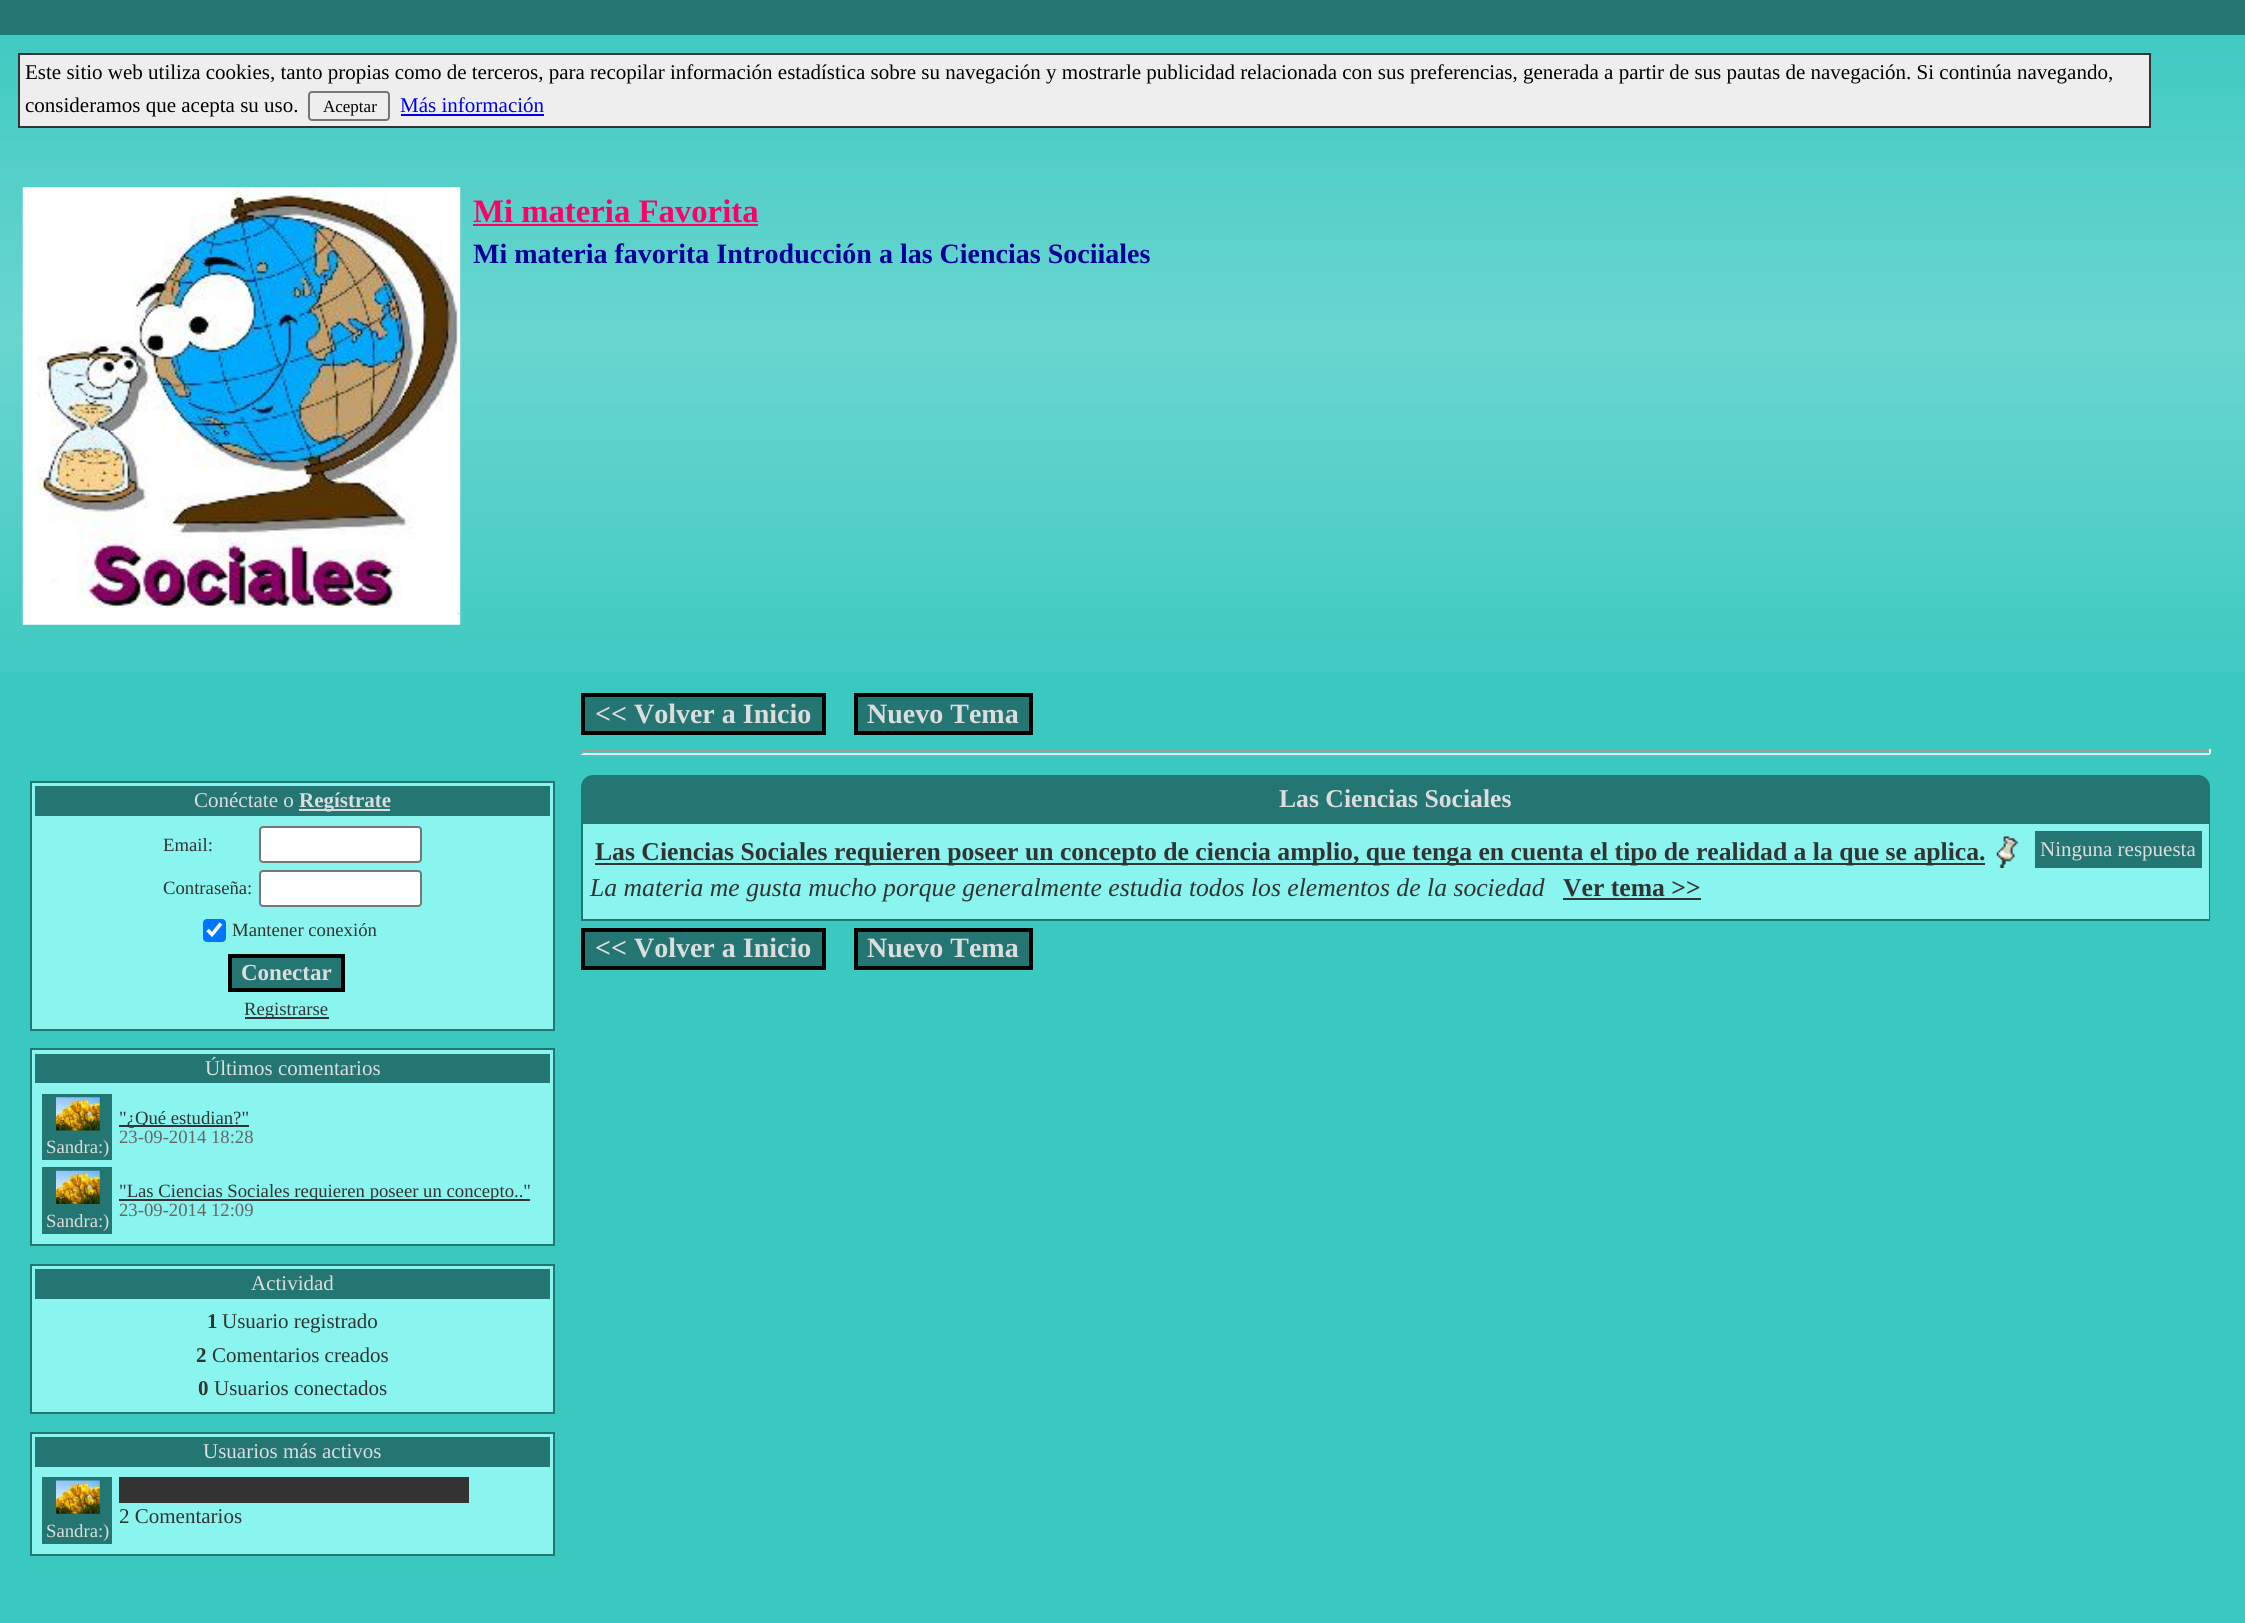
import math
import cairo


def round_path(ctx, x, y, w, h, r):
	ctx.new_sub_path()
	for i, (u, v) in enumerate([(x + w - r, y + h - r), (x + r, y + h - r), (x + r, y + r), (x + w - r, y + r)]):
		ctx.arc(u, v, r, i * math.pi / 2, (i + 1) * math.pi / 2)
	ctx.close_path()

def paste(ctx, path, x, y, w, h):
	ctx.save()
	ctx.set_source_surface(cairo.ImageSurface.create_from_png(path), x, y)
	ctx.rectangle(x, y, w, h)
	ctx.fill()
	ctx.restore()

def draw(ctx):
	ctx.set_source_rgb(0.227, 0.788, 0.757)
	ctx.paint()
	paste(ctx, 'media/1.png', 0, 35, 2245, 638)
	ctx.set_source_rgb(0.137, 0.463, 0.447)
	ctx.rectangle(0, 0, 2245, 35)
	ctx.fill()
	ctx.set_source_rgb(0.933, 0.933, 0.933)
	ctx.rectangle(19, 54, 2131, 73)
	ctx.fill_preserve()
	ctx.set_source_rgb(0.2, 0.2, 0.2)
	ctx.stroke()
	ctx.select_font_face('Liberation Serif')
	ctx.set_font_size(21)
	ctx.set_source_rgb(0, 0, 0)
	ctx.move_to(25, 79)
	ctx.show_text('Este sitio web utiliza cookies, tanto propias como de terceros, para recopilar información estadística sobre su navegación y mostrarle publicidad relacionada con sus preferencias, generada a partir de sus pautas de navegación. Si continúa navegando,')
	ctx.move_to(25, 112)
	ctx.show_text('consideramos que acepta su uso.')
	round_path(ctx, 309, 92, 80, 28, 3)
	ctx.set_source_rgb(0.463, 0.463, 0.463)
	ctx.stroke()
	ctx.set_font_size(17)
	ctx.set_source_rgb(0, 0, 0)
	ctx.move_to(323, 112)
	ctx.show_text('Aceptar')
	ctx.set_font_size(21)
	ctx.set_source_rgb(0, 0, 0.933)
	ctx.move_to(400, 112)
	ctx.show_text('Más información')
	ctx.rectangle(401, 114, 143, 2)
	ctx.fill()
	paste(ctx, 'media/2.png', 22, 187, 439, 438)
	ctx.select_font_face('Liberation Serif', cairo.FONT_SLANT_NORMAL, cairo.FONT_WEIGHT_BOLD)
	ctx.set_font_size(32.75)
	ctx.set_source_rgb(1, 0, 0.4)
	ctx.move_to(473, 222)
	ctx.show_text('Mi materia Favorita')
	ctx.rectangle(473, 224, 285, 2)
	ctx.fill()
	ctx.set_font_size(28)
	ctx.set_source_rgb(0, 0, 0.6)
	ctx.move_to(473, 263)
	ctx.show_text('Mi materia favorita Introducción a las Ciencias Sociiales')
	ctx.set_source_rgb(0.541, 0.957, 0.937)
	ctx.rectangle(31, 782, 523, 248)
	ctx.fill_preserve()
	ctx.set_source_rgb(0.137, 0.463, 0.447)
	ctx.stroke()
	ctx.rectangle(35, 786, 515, 30)
	ctx.fill()
	ctx.select_font_face('Liberation Serif')
	ctx.set_font_size(21)
	ctx.set_source_rgb(0.867, 0.867, 0.867)
	ctx.move_to(194, 807)
	ctx.show_text('Conéctate o')
	ctx.rectangle(299, 809, 91, 2)
	ctx.fill()
	ctx.select_font_face('Liberation Serif', cairo.FONT_SLANT_NORMAL, cairo.FONT_WEIGHT_BOLD)
	ctx.move_to(299, 807)
	ctx.show_text('Regístrate')
	ctx.select_font_face('Liberation Serif')
	ctx.set_font_size(18.7)
	ctx.set_source_rgb(0.2, 0.2, 0.2)
	ctx.move_to(163, 851)
	ctx.show_text('Email:')
	ctx.set_source_rgb(1, 1, 1)
	round_path(ctx, 260, 827, 161, 35, 3)
	ctx.fill_preserve()
	ctx.set_source_rgb(0.463, 0.463, 0.463)
	ctx.stroke()
	ctx.set_source_rgb(0.2, 0.2, 0.2)
	ctx.move_to(163, 894)
	ctx.show_text('Contraseña:')
	ctx.set_source_rgb(1, 1, 1)
	round_path(ctx, 260, 871, 161, 35, 3)
	ctx.fill_preserve()
	ctx.set_source_rgb(0.463, 0.463, 0.463)
	ctx.stroke()
	ctx.set_source_rgb(0, 0.459, 1)
	round_path(ctx, 203, 919, 23, 23, 4)
	ctx.fill()
	ctx.new_path()
	ctx.move_to(207.5, 930)
	ctx.line_to(212, 934.5)
	ctx.line_to(221, 923.5)
	ctx.set_source_rgb(1, 1, 1)
	ctx.set_line_width(3.6)
	ctx.stroke()
	ctx.set_source_rgb(0.2, 0.2, 0.2)
	ctx.move_to(232, 936)
	ctx.show_text('Mantener conexión')
	ctx.set_source_rgb(0.137, 0.463, 0.447)
	ctx.rectangle(230, 956, 113, 34)
	ctx.fill_preserve()
	ctx.set_source_rgb(0, 0, 0)
	ctx.set_line_width(4)
	ctx.stroke()
	ctx.select_font_face('Liberation Serif', cairo.FONT_SLANT_NORMAL, cairo.FONT_WEIGHT_BOLD)
	ctx.set_font_size(23)
	ctx.set_source_rgb(0.867, 0.867, 0.867)
	ctx.move_to(241, 980)
	ctx.show_text('Conectar')
	ctx.set_source_rgb(0.2, 0.2, 0.2)
	ctx.rectangle(245, 1017, 84, 2)
	ctx.fill()
	ctx.select_font_face('Liberation Serif')
	ctx.set_font_size(18.7)
	ctx.move_to(244, 1015)
	ctx.show_text('Registrarse')
	ctx.set_source_rgb(0.541, 0.957, 0.937)
	ctx.rectangle(31, 1049, 523, 196)
	ctx.fill_preserve()
	ctx.set_source_rgb(0.137, 0.463, 0.447)
	ctx.set_line_width(2)
	ctx.stroke()
	ctx.rectangle(35, 1054, 515, 29)
	ctx.fill()
	ctx.set_font_size(21)
	ctx.set_source_rgb(0.867, 0.867, 0.867)
	ctx.move_to(205, 1075)
	ctx.show_text('Últimos comentarios')
	ctx.set_source_rgb(0.2, 0.2, 0.2)
	ctx.rectangle(119, 1125, 130, 2)
	ctx.fill()
	ctx.set_font_size(18.7)
	ctx.move_to(119, 1124)
	ctx.show_text('"¿Qué estudian?"')
	ctx.set_source_rgb(0.4, 0.4, 0.4)
	ctx.move_to(119, 1143)
	ctx.show_text('23-09-2014 18:28')
	ctx.set_source_rgb(0.137, 0.463, 0.447)
	ctx.rectangle(42, 1094, 70, 66)
	ctx.fill()
	paste(ctx, 'media/3.png', 56, 1097, 44, 34)
	ctx.set_source_rgb(0.867, 0.867, 0.867)
	ctx.move_to(46, 1153)
	ctx.show_text('Sandra:)')
	ctx.set_source_rgb(0.2, 0.2, 0.2)
	ctx.rectangle(119, 1199, 411, 2)
	ctx.fill()
	ctx.move_to(119, 1197)
	ctx.show_text('"Las Ciencias Sociales requieren poseer un concepto.."')
	ctx.set_source_rgb(0.4, 0.4, 0.4)
	ctx.move_to(119, 1216)
	ctx.show_text('23-09-2014 12:09')
	ctx.set_source_rgb(0.137, 0.463, 0.447)
	ctx.rectangle(42, 1167, 70, 67)
	ctx.fill()
	paste(ctx, 'media/4.png', 56, 1170, 44, 34)
	ctx.set_source_rgb(0.867, 0.867, 0.867)
	ctx.move_to(46, 1227)
	ctx.show_text('Sandra:)')
	ctx.set_source_rgb(0.541, 0.957, 0.937)
	ctx.rectangle(31, 1265, 523, 148)
	ctx.fill_preserve()
	ctx.set_source_rgb(0.137, 0.463, 0.447)
	ctx.stroke()
	ctx.rectangle(35, 1269, 515, 30)
	ctx.fill()
	ctx.set_font_size(21)
	ctx.set_source_rgb(0.867, 0.867, 0.867)
	ctx.move_to(251, 1290)
	ctx.show_text('Actividad')
	ctx.select_font_face('Liberation Serif', cairo.FONT_SLANT_NORMAL, cairo.FONT_WEIGHT_BOLD)
	ctx.set_source_rgb(0.2, 0.2, 0.2)
	ctx.move_to(207, 1328)
	ctx.show_text('1')
	ctx.select_font_face('Liberation Serif')
	ctx.move_to(222, 1328)
	ctx.show_text('Usuario registrado')
	ctx.select_font_face('Liberation Serif', cairo.FONT_SLANT_NORMAL, cairo.FONT_WEIGHT_BOLD)
	ctx.move_to(196, 1362)
	ctx.show_text('2')
	ctx.select_font_face('Liberation Serif')
	ctx.move_to(212, 1362)
	ctx.show_text('Comentarios creados')
	ctx.select_font_face('Liberation Serif', cairo.FONT_SLANT_NORMAL, cairo.FONT_WEIGHT_BOLD)
	ctx.move_to(198, 1395)
	ctx.show_text('0')
	ctx.select_font_face('Liberation Serif')
	ctx.move_to(214, 1395)
	ctx.show_text('Usuarios conectados')
	ctx.set_source_rgb(0.541, 0.957, 0.937)
	ctx.rectangle(31, 1433, 523, 122)
	ctx.fill_preserve()
	ctx.set_source_rgb(0.137, 0.463, 0.447)
	ctx.stroke()
	ctx.rectangle(35, 1437, 515, 30)
	ctx.fill()
	ctx.set_source_rgb(0.867, 0.867, 0.867)
	ctx.move_to(203, 1458)
	ctx.show_text('Usuarios más activos')
	ctx.set_source_rgb(0.2, 0.2, 0.2)
	ctx.rectangle(119, 1477, 350, 26)
	ctx.fill()
	ctx.move_to(119, 1523)
	ctx.show_text('2 Comentarios')
	ctx.set_source_rgb(0.137, 0.463, 0.447)
	ctx.rectangle(42, 1477, 70, 67)
	ctx.fill()
	paste(ctx, 'media/5.png', 56, 1480, 44, 34)
	ctx.set_font_size(18.7)
	ctx.set_source_rgb(0.867, 0.867, 0.867)
	ctx.move_to(46, 1537)
	ctx.show_text('Sandra:)')
	ctx.set_source_rgb(0.137, 0.463, 0.447)
	ctx.rectangle(583, 695, 241, 38)
	ctx.fill_preserve()
	ctx.set_source_rgb(0, 0, 0)
	ctx.set_line_width(4)
	ctx.stroke()
	ctx.select_font_face('Liberation Serif', cairo.FONT_SLANT_NORMAL, cairo.FONT_WEIGHT_BOLD)
	ctx.set_font_size(28)
	ctx.set_source_rgb(0.867, 0.867, 0.867)
	ctx.move_to(595, 723)
	ctx.show_text('<< Volver a Inicio')
	ctx.set_source_rgb(0.137, 0.463, 0.447)
	ctx.rectangle(856, 695, 175, 38)
	ctx.fill_preserve()
	ctx.set_source_rgb(0, 0, 0)
	ctx.stroke()
	ctx.set_source_rgb(0.867, 0.867, 0.867)
	ctx.move_to(867, 723)
	ctx.show_text('Nuevo Tema')
	ctx.set_source_rgb(0.624, 0.624, 0.624)
	ctx.rectangle(581, 749, 1629, 2)
	ctx.fill()
	ctx.set_source_rgb(0.933, 0.933, 0.933)
	ctx.rectangle(2209, 749, 2, 5)
	ctx.rectangle(581, 753, 1629, 2)
	ctx.fill()
	ctx.set_source_rgb(0.624, 0.624, 0.624)
	ctx.rectangle(581, 749, 2, 5)
	ctx.fill()
	ctx.set_source_rgb(0.137, 0.463, 0.447)
	ctx.new_path()
	ctx.move_to(593, 775)
	ctx.line_to(2198, 775)
	ctx.curve_to(2204.5, 775, 2210, 780.5, 2210, 787)
	ctx.line_to(2210, 921)
	ctx.line_to(581, 921)
	ctx.line_to(581, 787)
	ctx.curve_to(581, 780.5, 586.5, 775, 593, 775)
	ctx.close_path()
	ctx.fill()
	ctx.set_font_size(25.67)
	ctx.set_source_rgb(0.867, 0.867, 0.867)
	ctx.move_to(1279, 807)
	ctx.show_text('Las Ciencias Sociales')
	ctx.set_source_rgb(0.541, 0.957, 0.937)
	ctx.rectangle(583, 824, 1626, 95)
	ctx.fill()
	ctx.set_source_rgb(0.2, 0.2, 0.2)
	ctx.rectangle(595, 863, 1390, 2)
	ctx.fill()
	ctx.move_to(595, 860)
	ctx.show_text('Las Ciencias Sociales requieren poseer un concepto de ciencia amplio, que tenga en cuenta el tipo de realidad a la que se aplica.')
	paste(ctx, 'media/6.png', 1996, 836, 22, 32)
	ctx.select_font_face('Liberation Serif', cairo.FONT_SLANT_ITALIC)
	ctx.move_to(590, 896)
	ctx.show_text('La materia me gusta mucho porque generalmente estudia todos los elementos de la sociedad')
	ctx.select_font_face('Liberation Serif', cairo.FONT_SLANT_NORMAL, cairo.FONT_WEIGHT_BOLD)
	ctx.move_to(1563, 896)
	ctx.show_text('Ver tema >>')
	ctx.rectangle(1563, 898, 138, 2)
	ctx.fill()
	ctx.set_source_rgb(0.137, 0.463, 0.447)
	ctx.rectangle(2035, 831, 167, 37)
	ctx.fill()
	ctx.select_font_face('Liberation Serif')
	ctx.set_font_size(21)
	ctx.set_source_rgb(0.867, 0.867, 0.867)
	ctx.move_to(2040, 856)
	ctx.show_text('Ninguna respuesta')
	ctx.set_source_rgb(0.137, 0.463, 0.447)
	ctx.rectangle(583, 930, 241, 38)
	ctx.fill_preserve()
	ctx.set_source_rgb(0, 0, 0)
	ctx.stroke()
	ctx.select_font_face('Liberation Serif', cairo.FONT_SLANT_NORMAL, cairo.FONT_WEIGHT_BOLD)
	ctx.set_font_size(28)
	ctx.set_source_rgb(0.867, 0.867, 0.867)
	ctx.move_to(595, 957)
	ctx.show_text('<< Volver a Inicio')
	ctx.set_source_rgb(0.137, 0.463, 0.447)
	ctx.rectangle(856, 930, 175, 38)
	ctx.fill_preserve()
	ctx.set_source_rgb(0, 0, 0)
	ctx.stroke()
	ctx.set_source_rgb(0.867, 0.867, 0.867)
	ctx.move_to(867, 957)
	ctx.show_text('Nuevo Tema')


surface = cairo.ImageSurface(cairo.FORMAT_RGB24, 2245, 1623)
ctx = cairo.Context(surface)
options = cairo.FontOptions()
options.set_hint_metrics(cairo.HINT_METRICS_OFF)
options.set_hint_style(cairo.HINT_STYLE_NONE)
ctx.set_font_options(options)
ctx.set_miter_limit(4)
draw(ctx)
surface.write_to_png('image.png')
